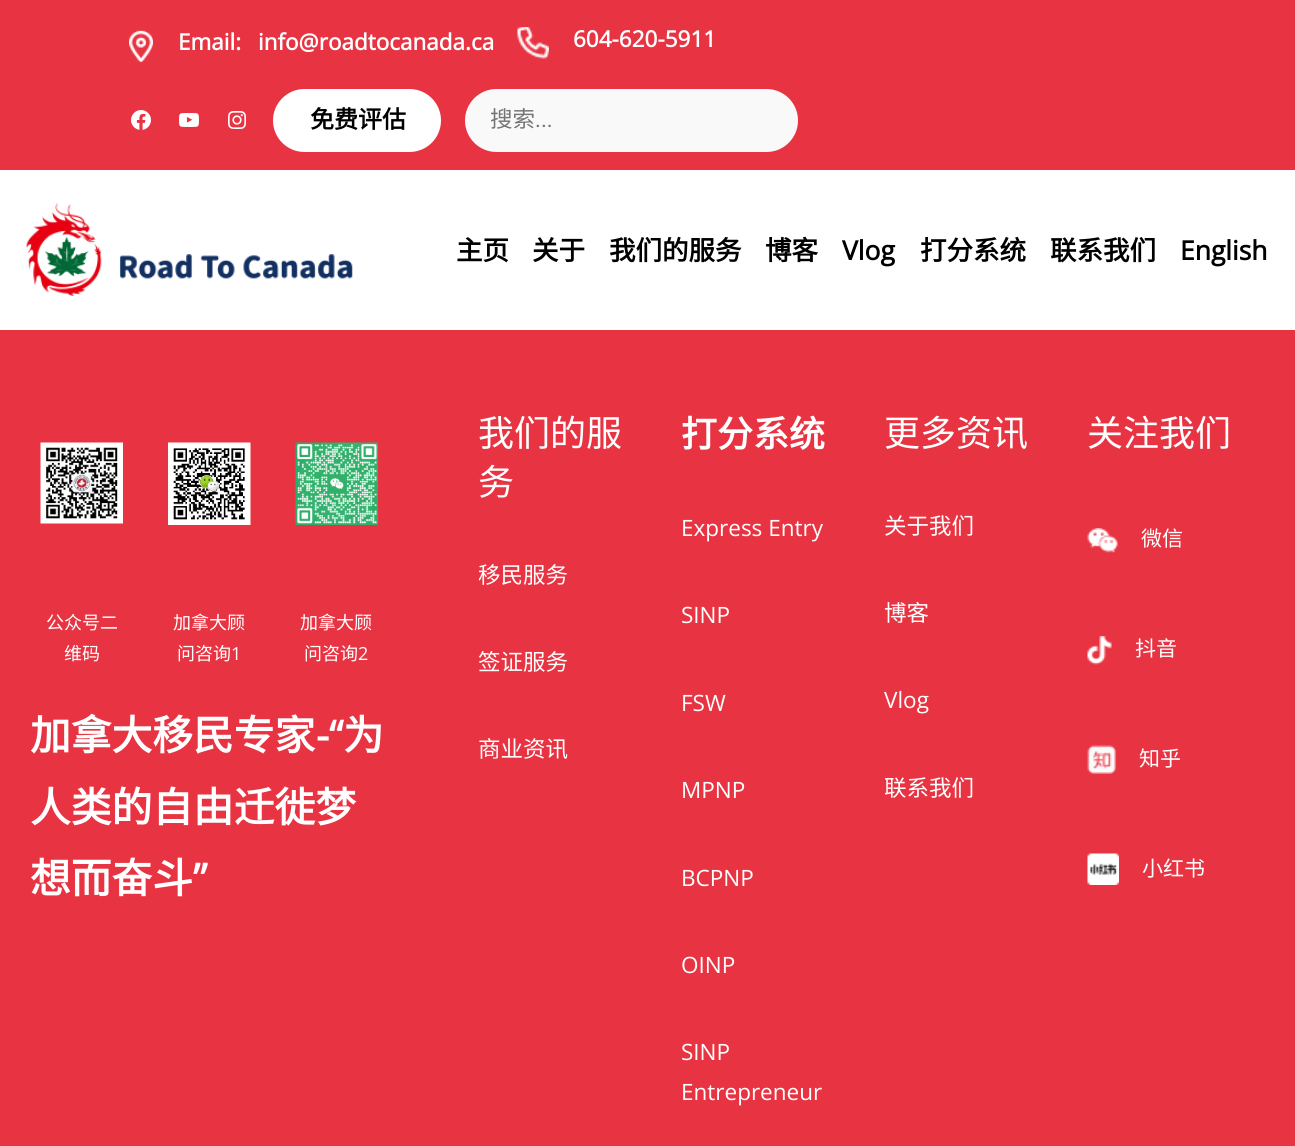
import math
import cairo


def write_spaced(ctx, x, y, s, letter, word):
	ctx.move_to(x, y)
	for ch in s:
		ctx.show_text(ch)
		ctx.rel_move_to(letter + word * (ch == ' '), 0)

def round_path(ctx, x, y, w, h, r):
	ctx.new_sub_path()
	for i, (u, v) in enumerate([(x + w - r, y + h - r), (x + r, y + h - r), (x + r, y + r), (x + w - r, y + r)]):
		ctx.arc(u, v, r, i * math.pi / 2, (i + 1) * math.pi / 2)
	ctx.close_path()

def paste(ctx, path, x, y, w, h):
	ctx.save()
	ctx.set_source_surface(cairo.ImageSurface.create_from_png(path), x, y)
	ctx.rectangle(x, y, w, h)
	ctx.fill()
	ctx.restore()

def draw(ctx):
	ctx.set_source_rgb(1, 1, 1)
	ctx.paint()
	ctx.set_source_rgb(0.91, 0.204, 0.259)
	ctx.rectangle(0, 0, 1295, 170)
	ctx.fill()
	paste(ctx, 'media/1.png', 129, 30, 24, 32)
	ctx.select_font_face('Open Sans', cairo.FONT_SLANT_NORMAL, cairo.FONT_WEIGHT_BOLD)
	ctx.set_font_size(22.5)
	ctx.set_source_rgb(1, 1, 1)
	write_spaced(ctx, 178, 50, 'Email: info@roadtocanada.ca', 0, 11)
	paste(ctx, 'media/2.png', 517, 27, 32, 32)
	ctx.move_to(573, 47)
	ctx.show_text('604-620-5911')
	paste(ctx, 'media/3.png', 131, 110, 20, 20)
	paste(ctx, 'media/4.png', 179, 113, 20, 14)
	paste(ctx, 'media/5.png', 228, 111, 18, 18)
	round_path(ctx, 273, 89, 168, 63, 31.5)
	ctx.fill()
	ctx.select_font_face('Noto Sans CJK SC', cairo.FONT_SLANT_NORMAL, cairo.FONT_WEIGHT_BOLD)
	ctx.set_font_size(24)
	ctx.set_source_rgb(0, 0, 0)
	ctx.move_to(310, 128)
	ctx.show_text('免费评估')
	ctx.set_source_rgb(0.973, 0.973, 0.973)
	round_path(ctx, 465, 89, 333, 63, 31.5)
	ctx.fill()
	ctx.select_font_face('Noto Sans CJK SC')
	ctx.set_font_size(22.5)
	ctx.set_source_rgb(0.459, 0.459, 0.459)
	ctx.move_to(490, 127)
	ctx.show_text('搜索')
	ctx.select_font_face('Roboto')
	ctx.move_to(535, 127)
	ctx.show_text('...')
	paste(ctx, 'media/6.png', 26, 203, 327, 93)
	ctx.select_font_face('Noto Sans CJK SC', cairo.FONT_SLANT_NORMAL, cairo.FONT_WEIGHT_BOLD)
	ctx.set_font_size(26.5)
	ctx.set_source_rgb(0, 0, 0)
	for x, y, s in [
		(456, 260, '主页'),
		(532, 260, '关于'),
		(609, 260, '我们的服务'),
		(765, 260, '博客'),
	]:
		ctx.move_to(x, y)
		ctx.show_text(s)
	ctx.select_font_face('Open Sans', cairo.FONT_SLANT_NORMAL, cairo.FONT_WEIGHT_BOLD)
	ctx.move_to(842, 260)
	ctx.show_text('Vlog')
	ctx.select_font_face('Noto Sans CJK SC', cairo.FONT_SLANT_NORMAL, cairo.FONT_WEIGHT_BOLD)
	ctx.move_to(920, 260)
	ctx.show_text('打分系统')
	ctx.move_to(1050, 260)
	ctx.show_text('联系我们')
	ctx.select_font_face('Open Sans', cairo.FONT_SLANT_NORMAL, cairo.FONT_WEIGHT_BOLD)
	ctx.move_to(1180, 260)
	ctx.show_text('English')
	ctx.set_source_rgb(0.91, 0.204, 0.259)
	ctx.rectangle(0, 330, 1295, 816)
	ctx.fill()
	paste(ctx, 'media/7.png', 40, 442, 83, 82)
	ctx.select_font_face('Noto Sans CJK SC')
	ctx.set_font_size(18)
	ctx.set_source_rgb(1, 1, 1)
	ctx.move_to(46, 629)
	ctx.show_text('公众号二')
	ctx.move_to(64, 660)
	ctx.show_text('维码')
	paste(ctx, 'media/8.png', 168, 442, 83, 83)
	ctx.move_to(173, 629)
	ctx.show_text('加拿大顾')
	ctx.move_to(177, 660)
	ctx.show_text('问咨询')
	ctx.select_font_face('Open Sans')
	ctx.move_to(231, 660)
	ctx.show_text('1')
	paste(ctx, 'media/9.png', 295, 442, 83, 83)
	ctx.select_font_face('Noto Sans CJK SC')
	ctx.move_to(300, 629)
	ctx.show_text('加拿大顾')
	ctx.move_to(304, 660)
	ctx.show_text('问咨询')
	ctx.select_font_face('Open Sans')
	ctx.move_to(358, 660)
	ctx.show_text('2')
	ctx.select_font_face('Noto Sans CJK SC', cairo.FONT_SLANT_NORMAL, cairo.FONT_WEIGHT_BOLD)
	ctx.set_font_size(40.75)
	ctx.move_to(30, 750)
	ctx.show_text('加拿大移民专家')
	ctx.select_font_face('Open Sans', cairo.FONT_SLANT_NORMAL, cairo.FONT_WEIGHT_BOLD)
	ctx.move_to(316, 750)
	ctx.show_text('-“')
	ctx.select_font_face('Noto Sans CJK SC', cairo.FONT_SLANT_NORMAL, cairo.FONT_WEIGHT_BOLD)
	for x, y, s in [
		(343, 750, '为'),
		(30, 822, '人类的自由迁徙梦'),
		(30, 893, '想而奋斗'),
	]:
		ctx.move_to(x, y)
		ctx.show_text(s)
	ctx.select_font_face('Open Sans', cairo.FONT_SLANT_NORMAL, cairo.FONT_WEIGHT_BOLD)
	ctx.move_to(193, 893)
	ctx.show_text('”')
	ctx.select_font_face('Noto Sans CJK SC')
	ctx.set_font_size(36)
	ctx.move_to(478, 446)
	ctx.show_text('我们的服')
	ctx.move_to(478, 495)
	ctx.show_text('务')
	ctx.set_font_size(22.5)
	for x, y, s in [
		(478, 583, '移民服务'),
		(478, 670, '签证服务'),
		(478, 757, '商业资讯'),
	]:
		ctx.move_to(x, y)
		ctx.show_text(s)
	ctx.select_font_face('Noto Sans CJK SC', cairo.FONT_SLANT_NORMAL, cairo.FONT_WEIGHT_BOLD)
	ctx.set_font_size(36)
	ctx.move_to(681, 447)
	ctx.show_text('打分系统')
	ctx.select_font_face('Open Sans')
	ctx.set_font_size(22.5)
	for x, y, s in [
		(681, 536, 'Express Entry'),
		(681, 623, 'SINP'),
		(681, 711, 'FSW'),
		(681, 798, 'MPNP'),
		(681, 886, 'BCPNP'),
		(681, 973, 'OINP'),
		(681, 1060, 'SINP'),
		(681, 1100, 'Entrepreneur'),
	]:
		ctx.move_to(x, y)
		ctx.show_text(s)
	ctx.select_font_face('Noto Sans CJK SC')
	ctx.set_font_size(36)
	ctx.move_to(884, 446)
	ctx.show_text('更多资讯')
	ctx.set_font_size(22.5)
	ctx.move_to(884, 534)
	ctx.show_text('关于我们')
	ctx.move_to(884, 621)
	ctx.show_text('博客')
	ctx.select_font_face('Open Sans')
	ctx.move_to(884, 708)
	ctx.show_text('Vlog')
	ctx.select_font_face('Noto Sans CJK SC')
	ctx.move_to(884, 796)
	ctx.show_text('联系我们')
	ctx.set_font_size(36)
	ctx.move_to(1087, 446)
	ctx.show_text('关注我们')
	paste(ctx, 'media/10.png', 1087, 528, 31, 25)
	ctx.set_font_size(21)
	ctx.move_to(1141, 546)
	ctx.show_text('微信')
	paste(ctx, 'media/11.png', 1087, 636, 25, 29)
	ctx.move_to(1135, 656)
	ctx.show_text('抖音')
	paste(ctx, 'media/12.png', 1087, 745, 29, 29)
	ctx.move_to(1139, 766)
	ctx.show_text('知乎')
	paste(ctx, 'media/13.png', 1087, 853, 32, 32)
	ctx.move_to(1142, 876)
	ctx.show_text('小红书')


surface = cairo.ImageSurface(cairo.FORMAT_RGB24, 1295, 1146)
ctx = cairo.Context(surface)
options = cairo.FontOptions()
options.set_hint_metrics(cairo.HINT_METRICS_OFF)
options.set_hint_style(cairo.HINT_STYLE_NONE)
ctx.set_font_options(options)
ctx.set_miter_limit(4)
draw(ctx)
surface.write_to_png('image.png')
